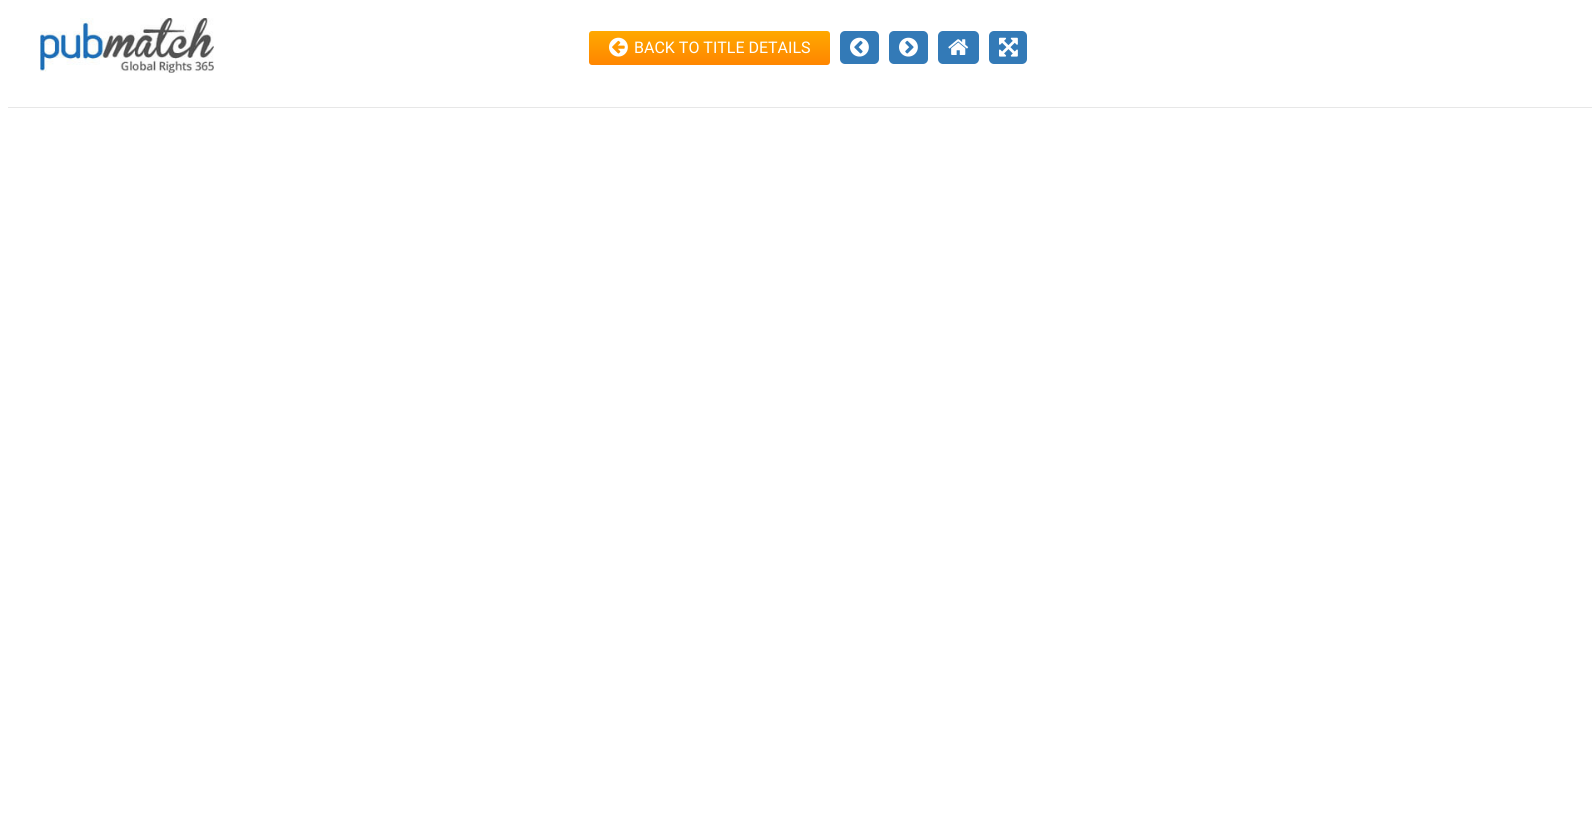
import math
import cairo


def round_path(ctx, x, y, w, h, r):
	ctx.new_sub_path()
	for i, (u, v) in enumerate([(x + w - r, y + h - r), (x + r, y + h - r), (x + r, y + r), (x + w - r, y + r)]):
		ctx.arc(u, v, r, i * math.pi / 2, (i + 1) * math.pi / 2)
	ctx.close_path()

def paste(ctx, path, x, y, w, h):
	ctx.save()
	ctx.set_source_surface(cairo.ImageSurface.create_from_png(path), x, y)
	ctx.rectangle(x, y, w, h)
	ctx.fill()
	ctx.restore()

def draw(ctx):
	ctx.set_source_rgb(1, 1, 1)
	ctx.paint()
	ctx.set_source_rgb(0.906, 0.906, 0.906)
	ctx.rectangle(8, 107, 1584, 1)
	ctx.fill()
	paste(ctx, 'media/1.png', 40, 18, 174, 55)
	gradient = cairo.LinearGradient(710, 31, 710, 65)
	gradient.add_color_stop_rgba(0, 1, 0.663, 0, 1)
	gradient.add_color_stop_rgba(1, 1, 0.522, 0, 1)
	ctx.set_source(gradient)
	round_path(ctx, 589, 31, 241, 34, 3)
	ctx.fill()
	paste(ctx, 'media/2.png', 609, 37, 19, 20)
	ctx.select_font_face('Roboto')
	ctx.set_font_size(16)
	ctx.set_source_rgb(1, 1, 1)
	ctx.move_to(634, 53)
	ctx.show_text('BACK TO TITLE DETAILS')
	ctx.set_source_rgb(0.2, 0.478, 0.718)
	round_path(ctx, 840, 31, 39, 33, 5)
	ctx.fill()
	paste(ctx, 'media/3.png', 850, 37, 19, 20)
	round_path(ctx, 889, 31, 39, 33, 5)
	ctx.fill()
	paste(ctx, 'media/4.png', 899, 37, 19, 20)
	round_path(ctx, 938, 31, 41, 33, 5)
	ctx.fill()
	paste(ctx, 'media/5.png', 948, 39, 21, 16)
	round_path(ctx, 989, 31, 38, 33, 5)
	ctx.fill()
	paste(ctx, 'media/6.png', 999, 37, 19, 20)


surface = cairo.ImageSurface(cairo.FORMAT_RGB24, 1592, 837)
ctx = cairo.Context(surface)
options = cairo.FontOptions()
options.set_hint_metrics(cairo.HINT_METRICS_OFF)
options.set_hint_style(cairo.HINT_STYLE_NONE)
ctx.set_font_options(options)
ctx.set_miter_limit(4)
draw(ctx)
surface.write_to_png('image.png')
